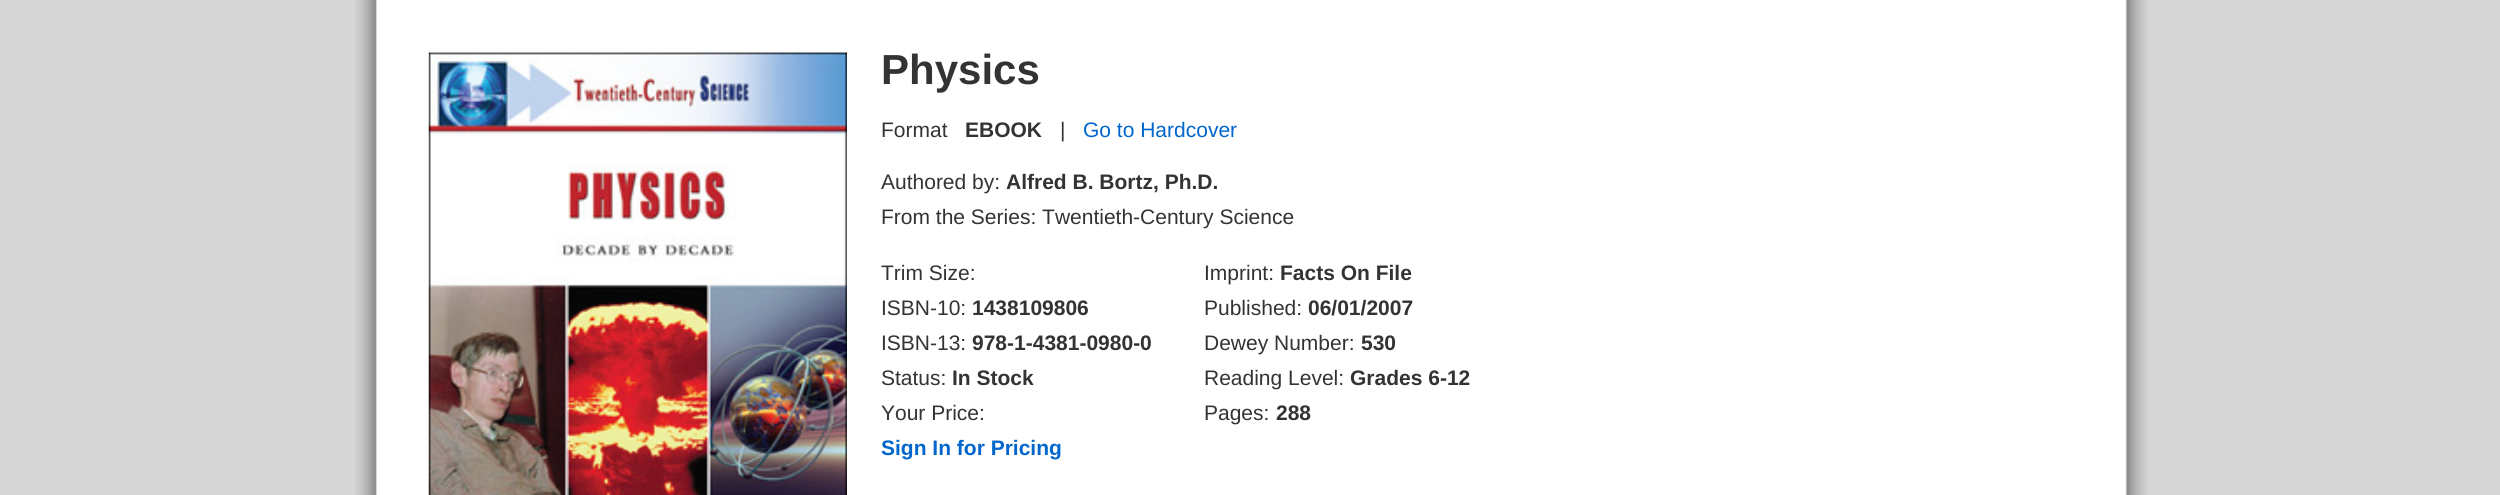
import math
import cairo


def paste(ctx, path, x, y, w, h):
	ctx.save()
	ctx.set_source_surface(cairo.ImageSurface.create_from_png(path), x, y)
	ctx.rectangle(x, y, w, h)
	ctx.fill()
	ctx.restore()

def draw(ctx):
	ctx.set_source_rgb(0.839, 0.839, 0.839)
	ctx.paint()
	paste(ctx, 'media/1.png', 355, 166, 1793, 329)
	paste(ctx, 'media/2.png', 355, 0, 1793, 166)
	paste(ctx, 'media/3.png', 428, 52, 419, 443)
	ctx.select_font_face('Liberation Sans', cairo.FONT_SLANT_NORMAL, cairo.FONT_WEIGHT_BOLD)
	ctx.set_font_size(42)
	ctx.set_source_rgb(0.2, 0.2, 0.2)
	ctx.move_to(881, 84)
	ctx.show_text('Physics')
	ctx.select_font_face('Liberation Sans')
	ctx.set_font_size(21)
	ctx.move_to(881, 137)
	ctx.show_text('Format')
	ctx.select_font_face('Liberation Sans', cairo.FONT_SLANT_NORMAL, cairo.FONT_WEIGHT_BOLD)
	ctx.move_to(965, 137)
	ctx.show_text('EBOOK')
	ctx.select_font_face('Liberation Sans')
	ctx.move_to(1060, 137)
	ctx.show_text('|')
	ctx.set_source_rgb(0, 0.4, 0.8)
	ctx.move_to(1083, 137)
	ctx.show_text('Go to Hardcover')
	ctx.set_source_rgb(0.2, 0.2, 0.2)
	ctx.move_to(881, 189)
	ctx.show_text('Authored by:')
	ctx.select_font_face('Liberation Sans', cairo.FONT_SLANT_NORMAL, cairo.FONT_WEIGHT_BOLD)
	ctx.move_to(1006, 189)
	ctx.show_text('Alfred B. Bortz, Ph.D.')
	ctx.select_font_face('Liberation Sans')
	for x, y, s in [
		(881, 224, 'From the Series: Twentieth-Century Science'),
		(881, 280, 'Trim Size:'),
		(881, 315, 'ISBN-10:'),
	]:
		ctx.move_to(x, y)
		ctx.show_text(s)
	ctx.select_font_face('Liberation Sans', cairo.FONT_SLANT_NORMAL, cairo.FONT_WEIGHT_BOLD)
	ctx.move_to(972, 315)
	ctx.show_text('1438109806')
	ctx.select_font_face('Liberation Sans')
	ctx.move_to(881, 350)
	ctx.show_text('ISBN-13:')
	ctx.select_font_face('Liberation Sans', cairo.FONT_SLANT_NORMAL, cairo.FONT_WEIGHT_BOLD)
	ctx.move_to(972, 350)
	ctx.show_text('978-1-4381-0980-0')
	ctx.select_font_face('Liberation Sans')
	ctx.move_to(881, 385)
	ctx.show_text('Status:')
	ctx.select_font_face('Liberation Sans', cairo.FONT_SLANT_NORMAL, cairo.FONT_WEIGHT_BOLD)
	ctx.move_to(952, 385)
	ctx.show_text('In Stock')
	ctx.select_font_face('Liberation Sans')
	ctx.move_to(881, 420)
	ctx.show_text('Your Price:')
	ctx.select_font_face('Liberation Sans', cairo.FONT_SLANT_NORMAL, cairo.FONT_WEIGHT_BOLD)
	ctx.set_source_rgb(0, 0.4, 0.8)
	ctx.move_to(881, 455)
	ctx.show_text('Sign In for Pricing')
	ctx.select_font_face('Liberation Sans')
	ctx.set_source_rgb(0.2, 0.2, 0.2)
	ctx.move_to(1204, 280)
	ctx.show_text('Imprint:')
	ctx.select_font_face('Liberation Sans', cairo.FONT_SLANT_NORMAL, cairo.FONT_WEIGHT_BOLD)
	ctx.move_to(1280, 280)
	ctx.show_text('Facts On File')
	ctx.select_font_face('Liberation Sans')
	ctx.move_to(1204, 315)
	ctx.show_text('Published:')
	ctx.select_font_face('Liberation Sans', cairo.FONT_SLANT_NORMAL, cairo.FONT_WEIGHT_BOLD)
	ctx.move_to(1308, 315)
	ctx.show_text('06/01/2007')
	ctx.select_font_face('Liberation Sans')
	ctx.move_to(1204, 350)
	ctx.show_text('Dewey Number:')
	ctx.select_font_face('Liberation Sans', cairo.FONT_SLANT_NORMAL, cairo.FONT_WEIGHT_BOLD)
	ctx.move_to(1361, 350)
	ctx.show_text('530')
	ctx.select_font_face('Liberation Sans')
	ctx.move_to(1204, 385)
	ctx.show_text('Reading Level:')
	ctx.select_font_face('Liberation Sans', cairo.FONT_SLANT_NORMAL, cairo.FONT_WEIGHT_BOLD)
	ctx.move_to(1350, 385)
	ctx.show_text('Grades 6-12')
	ctx.select_font_face('Liberation Sans')
	ctx.move_to(1204, 420)
	ctx.show_text('Pages:')
	ctx.select_font_face('Liberation Sans', cairo.FONT_SLANT_NORMAL, cairo.FONT_WEIGHT_BOLD)
	ctx.move_to(1276, 420)
	ctx.show_text('288')


surface = cairo.ImageSurface(cairo.FORMAT_RGB24, 2500, 495)
ctx = cairo.Context(surface)
options = cairo.FontOptions()
options.set_hint_metrics(cairo.HINT_METRICS_OFF)
options.set_hint_style(cairo.HINT_STYLE_NONE)
ctx.set_font_options(options)
ctx.set_miter_limit(4)
draw(ctx)
surface.write_to_png('image.png')
